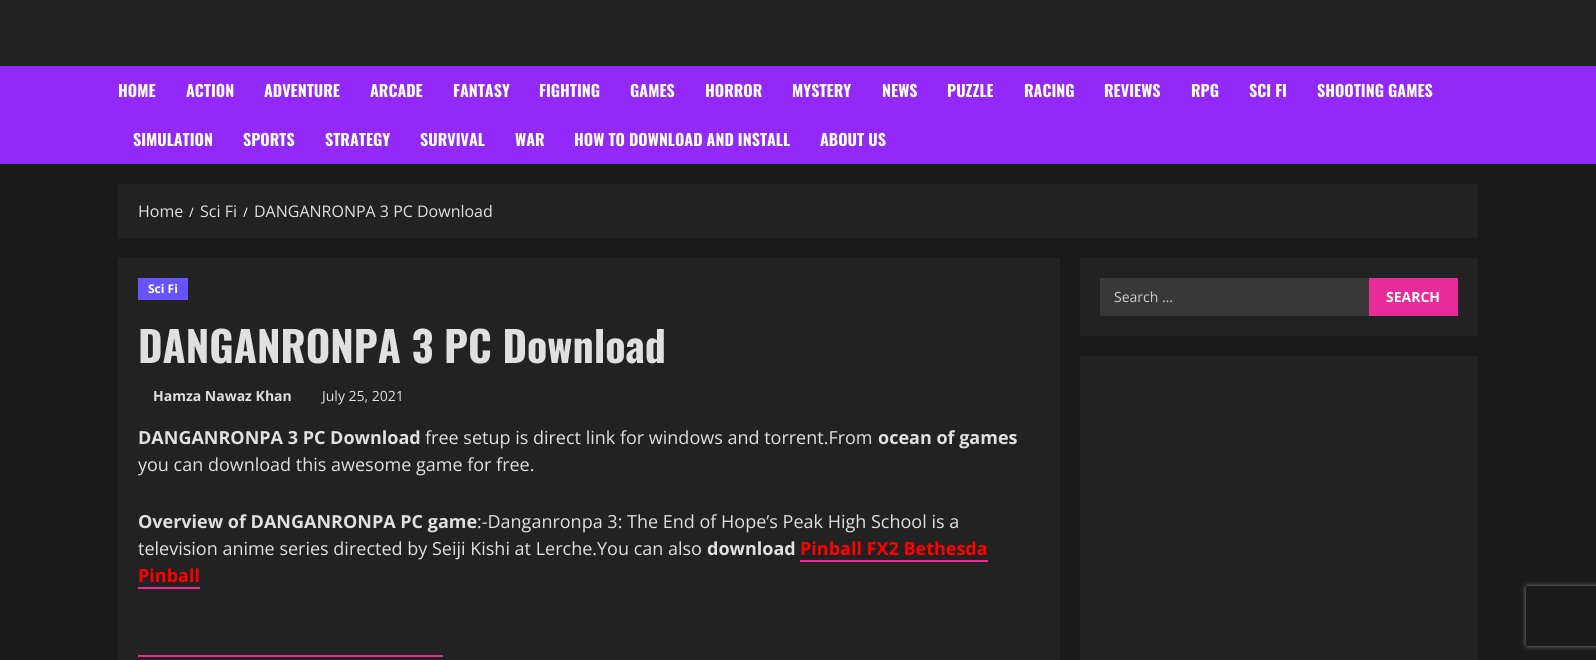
import math
import cairo


def round_path(ctx, x, y, w, h, r):
	ctx.new_sub_path()
	for i, (u, v) in enumerate([(x + w - r, y + h - r), (x + r, y + h - r), (x + r, y + r), (x + w - r, y + r)]):
		ctx.arc(u, v, r, i * math.pi / 2, (i + 1) * math.pi / 2)
	ctx.close_path()

def blur_box(ctx, x, y, w, h, r, blur, alpha):
	ctx.push_group_with_content(cairo.CONTENT_ALPHA)
	ctx.set_operator(cairo.OPERATOR_SOURCE)
	for i in range(15, -16, -2):
		e = blur * i / 6
		if min(w, h) + 2 * e > 0:
			ctx.set_source_rgba(0, 0, 0, alpha * math.erfc((i - 1) / 8.5) / 2)
			round_path(ctx, x - e, y - e, w + 2 * e, h + 2 * e, max(0, min(r + e + blur * .6, min(w, h) / 2 + e)))
			ctx.fill()
	ctx.mask(ctx.pop_group())

def draw(ctx):
	ctx.set_source_rgb(0.102, 0.102, 0.102)
	ctx.paint()
	ctx.set_source_rgb(0.133, 0.133, 0.133)
	ctx.rectangle(0, 0, 1596, 66)
	ctx.fill()
	ctx.set_source_rgb(0.573, 0.161, 0.969)
	ctx.rectangle(0, 66, 1596, 98)
	ctx.fill()
	ctx.select_font_face('Oswald', cairo.FONT_SLANT_NORMAL, cairo.FONT_WEIGHT_BOLD)
	ctx.set_font_size(16)
	ctx.set_source_rgb(1, 1, 1)
	for x, y, s in [
		(118, 97, 'HOME'),
		(186, 97, 'ACTION'),
		(264, 97, 'ADVENTURE'),
		(370, 97, 'ARCADE'),
		(453, 97, 'FANTASY'),
		(539, 97, 'FIGHTING'),
		(630, 97, 'GAMES'),
		(705, 97, 'HORROR'),
		(792, 97, 'MYSTERY'),
		(882, 97, 'NEWS'),
		(947, 97, 'PUZZLE'),
		(1024, 97, 'RACING'),
		(1104, 97, 'REVIEWS'),
		(1191, 97, 'RPG'),
		(1249, 97, 'SCI FI'),
		(1317, 97, 'SHOOTING GAMES'),
		(133, 146, 'SIMULATION'),
		(243, 146, 'SPORTS'),
		(325, 146, 'STRATEGY'),
		(420, 146, 'SURVIVAL'),
		(515, 146, 'WAR'),
		(574, 146, 'HOW TO DOWNLOAD AND INSTALL'),
		(820, 146, 'ABOUT US'),
	]:
		ctx.move_to(x, y)
		ctx.show_text(s)
	ctx.set_source_rgb(0.133, 0.133, 0.133)
	ctx.rectangle(118, 184, 1360, 54)
	ctx.fill()
	ctx.select_font_face('Open Sans')
	ctx.set_source_rgb(0.878, 0.878, 0.878)
	ctx.move_to(138, 217)
	ctx.show_text('Home')
	ctx.set_font_size(13)
	ctx.set_source_rgb(1, 1, 1)
	ctx.move_to(189, 217)
	ctx.show_text('/')
	ctx.set_font_size(16)
	ctx.set_source_rgb(0.878, 0.878, 0.878)
	ctx.move_to(200, 217)
	ctx.show_text('Sci Fi')
	ctx.set_font_size(13)
	ctx.set_source_rgb(1, 1, 1)
	ctx.move_to(243, 217)
	ctx.show_text('/')
	ctx.set_font_size(16)
	ctx.set_source_rgb(0.878, 0.878, 0.878)
	ctx.move_to(254, 217)
	ctx.show_text('DANGANRONPA 3 PC Download')
	ctx.set_source_rgb(0.133, 0.133, 0.133)
	ctx.rectangle(118, 258, 942, 402)
	ctx.fill()
	ctx.set_source_rgb(0.412, 0.325, 1)
	ctx.rectangle(138, 278, 50, 22)
	ctx.fill()
	ctx.select_font_face('Open Sans', cairo.FONT_SLANT_NORMAL, cairo.FONT_WEIGHT_BOLD)
	ctx.set_font_size(12)
	ctx.set_source_rgb(1, 1, 1)
	ctx.move_to(148, 293)
	ctx.show_text('Sci Fi')
	ctx.select_font_face('Oswald', cairo.FONT_SLANT_NORMAL, cairo.FONT_WEIGHT_BOLD)
	ctx.set_font_size(42)
	ctx.set_source_rgb(0.878, 0.878, 0.878)
	ctx.move_to(138, 363)
	ctx.show_text('DANGANRONPA 3 PC Download')
	ctx.select_font_face('Open Sans', cairo.FONT_SLANT_NORMAL, cairo.FONT_WEIGHT_BOLD)
	ctx.set_font_size(14)
	ctx.move_to(153, 401)
	ctx.show_text('Hamza Nawaz Khan')
	ctx.select_font_face('Open Sans')
	ctx.move_to(322, 401)
	ctx.show_text('July 25, 2021')
	ctx.select_font_face('Open Sans', cairo.FONT_SLANT_NORMAL, cairo.FONT_WEIGHT_BOLD)
	ctx.set_font_size(18)
	ctx.move_to(138, 444)
	ctx.show_text('DANGANRONPA 3 PC Download')
	ctx.select_font_face('Open Sans')
	ctx.move_to(425, 444)
	ctx.show_text('free setup is direct link for windows and torrent.From')
	ctx.select_font_face('Open Sans', cairo.FONT_SLANT_NORMAL, cairo.FONT_WEIGHT_BOLD)
	ctx.move_to(878, 444)
	ctx.show_text('ocean of games')
	ctx.select_font_face('Open Sans')
	ctx.move_to(138, 471)
	ctx.show_text('you can download this awesome game for free.')
	ctx.select_font_face('Open Sans', cairo.FONT_SLANT_NORMAL, cairo.FONT_WEIGHT_BOLD)
	ctx.move_to(138, 528)
	ctx.show_text('Overview of DANGANRONPA PC game')
	ctx.select_font_face('Open Sans')
	ctx.move_to(477, 528)
	ctx.show_text(':-Danganronpa 3: The End of Hope’s Peak High School is a')
	ctx.move_to(138, 555)
	ctx.show_text('television anime series directed by Seiji Kishi at Lerche.You can also')
	ctx.select_font_face('Open Sans', cairo.FONT_SLANT_NORMAL, cairo.FONT_WEIGHT_BOLD)
	ctx.move_to(707, 555)
	ctx.show_text('download')
	ctx.set_source_rgb(1, 0, 0)
	ctx.move_to(800, 555)
	ctx.show_text('Pinball FX2 Bethesda')
	ctx.set_source_rgb(0.906, 0.169, 0.6)
	ctx.rectangle(800, 560, 188, 2)
	ctx.fill()
	ctx.set_source_rgb(1, 0, 0)
	ctx.move_to(138, 582)
	ctx.show_text('Pinball')
	ctx.set_source_rgb(0.906, 0.169, 0.6)
	ctx.rectangle(138, 587, 62, 2)
	ctx.rectangle(138, 655, 305, 2)
	ctx.fill()
	ctx.set_source_rgb(0.133, 0.133, 0.133)
	ctx.rectangle(1080, 258, 398, 78)
	ctx.fill()
	ctx.set_source_rgb(0.22, 0.22, 0.22)
	ctx.rectangle(1100, 278, 269, 38)
	ctx.fill()
	ctx.select_font_face('Open Sans')
	ctx.set_font_size(14)
	ctx.set_source_rgb(0.804, 0.804, 0.804)
	ctx.move_to(1114, 302)
	ctx.show_text('Search …')
	ctx.set_source_rgb(0.906, 0.169, 0.6)
	ctx.rectangle(1369, 278, 89, 38)
	ctx.fill()
	ctx.select_font_face('Open Sans', cairo.FONT_SLANT_NORMAL, cairo.FONT_WEIGHT_BOLD)
	ctx.set_source_rgb(1, 1, 1)
	ctx.move_to(1386, 302)
	ctx.show_text('SEARCH')
	ctx.set_source_rgb(0.133, 0.133, 0.133)
	ctx.rectangle(1080, 356, 398, 304)
	ctx.fill()
	ctx.save()
	ctx.set_fill_rule(cairo.FILL_RULE_EVEN_ODD)
	ctx.new_path()
	ctx.move_to(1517, 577)
	ctx.line_to(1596, 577)
	ctx.line_to(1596, 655)
	ctx.line_to(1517, 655)
	ctx.close_path()
	ctx.move_to(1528, 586)
	ctx.line_to(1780, 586)
	ctx.curve_to(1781, 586, 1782, 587, 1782, 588)
	ctx.line_to(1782, 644)
	ctx.curve_to(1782, 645, 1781, 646, 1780, 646)
	ctx.line_to(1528, 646)
	ctx.curve_to(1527, 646, 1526, 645, 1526, 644)
	ctx.line_to(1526, 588)
	ctx.curve_to(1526, 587, 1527, 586, 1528, 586)
	ctx.close_path()
	ctx.clip()
	ctx.set_source_rgb(0.502, 0.502, 0.502)
	blur_box(ctx, 1526, 586, 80, 60, 2, 2.5, 1)
	ctx.restore()


surface = cairo.ImageSurface(cairo.FORMAT_RGB24, 1596, 660)
ctx = cairo.Context(surface)
options = cairo.FontOptions()
options.set_hint_metrics(cairo.HINT_METRICS_OFF)
options.set_hint_style(cairo.HINT_STYLE_NONE)
ctx.set_font_options(options)
ctx.set_miter_limit(4)
draw(ctx)
surface.write_to_png('image.png')
